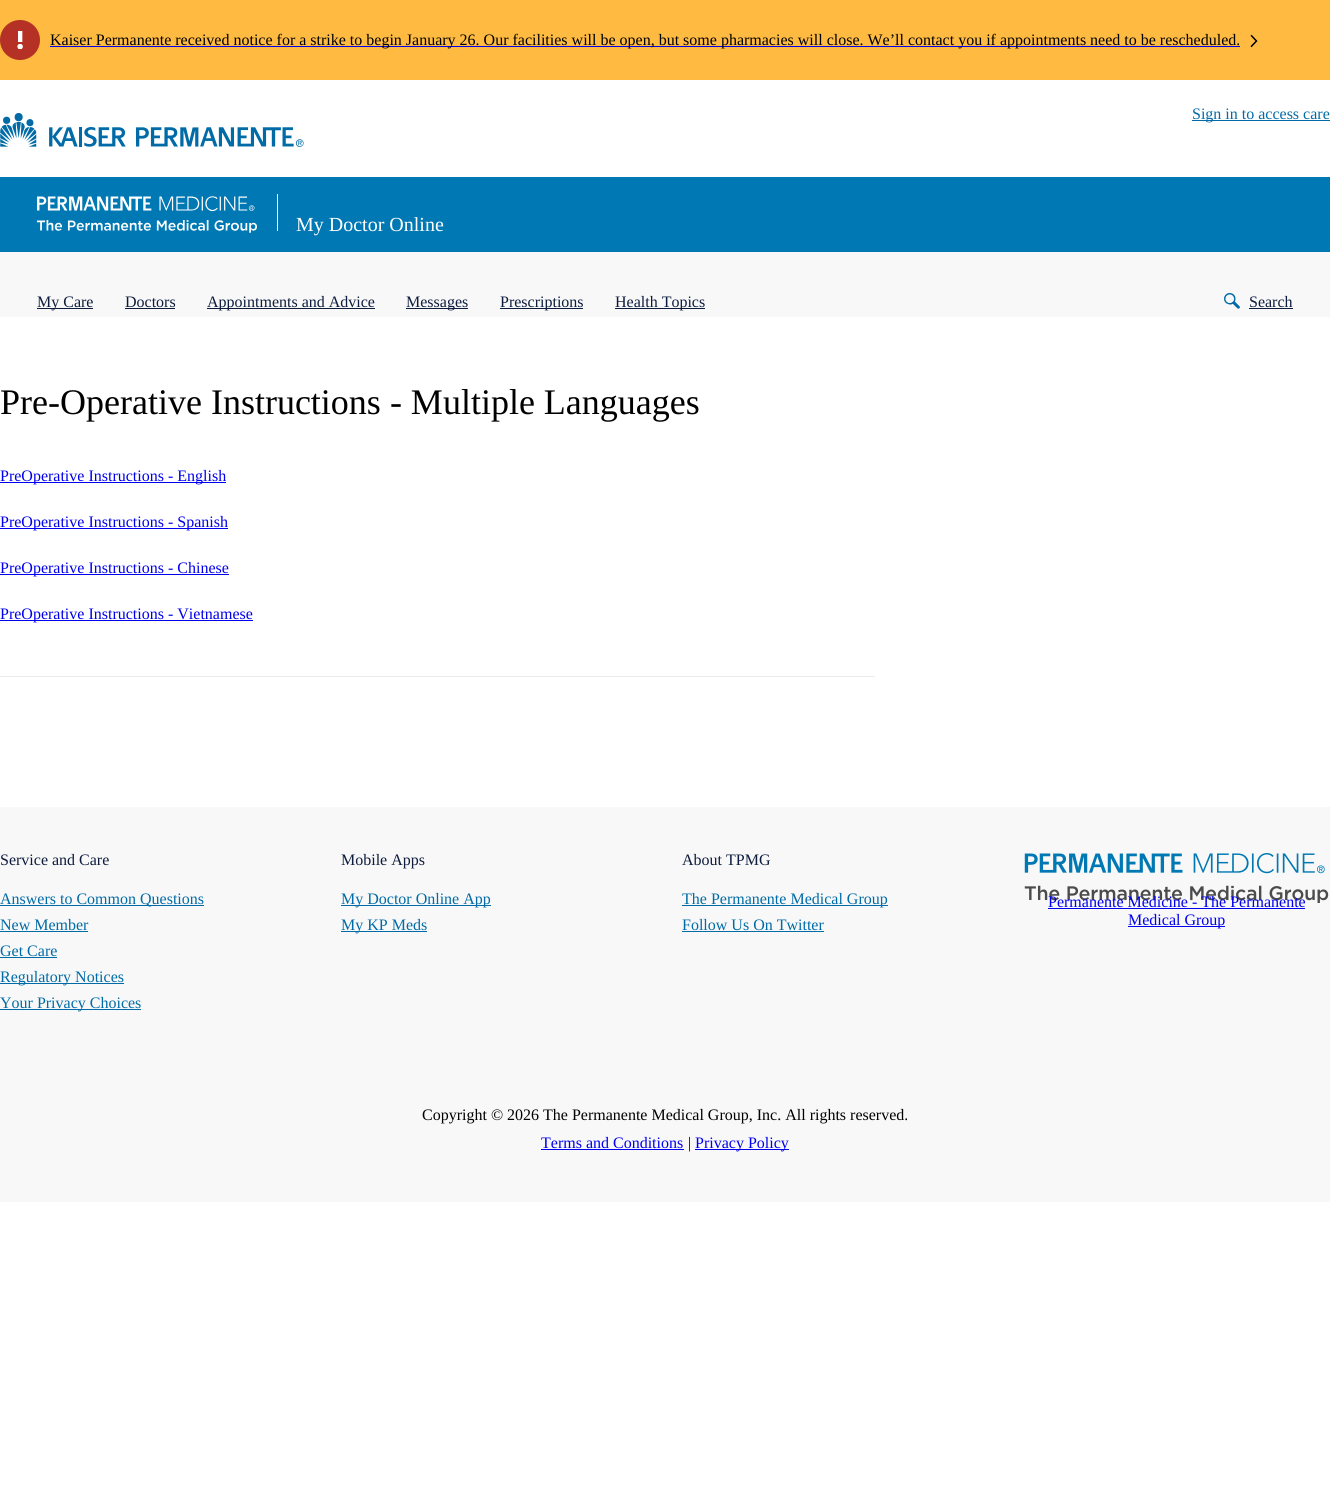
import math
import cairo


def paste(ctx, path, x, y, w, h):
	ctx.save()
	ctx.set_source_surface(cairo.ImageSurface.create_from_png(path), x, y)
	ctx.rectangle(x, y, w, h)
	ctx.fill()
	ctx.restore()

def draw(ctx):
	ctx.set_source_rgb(1, 1, 1)
	ctx.paint()
	ctx.set_source_rgb(0.996, 0.729, 0.255)
	ctx.rectangle(0, 0, 1330, 80)
	ctx.fill()
	ctx.set_source_rgb(0.714, 0.192, 0.145)
	ctx.arc(20, 40, 20, 0, 2 * math.pi)
	ctx.fill()
	paste(ctx, 'media/1.png', 17, 31, 6, 18)
	ctx.set_source_rgb(0, 0, 0.933)
	ctx.rectangle(50, 46, 1190, 1)
	ctx.fill()
	ctx.select_font_face('Liberation Serif')
	ctx.set_font_size(16)
	ctx.set_source_rgb(0, 0, 0)
	ctx.move_to(50, 45)
	ctx.show_text('Kaiser Permanente received notice for a strike to begin January 26. Our facilities will be open, but some pharmacies will close. We’ll contact you if appointments need to be rescheduled.')
	paste(ctx, 'media/2.png', 1250, 34, 8, 14)
	paste(ctx, 'media/3.png', 0, 113, 304, 34)
	ctx.set_source_rgb(0, 0.42, 0.651)
	ctx.rectangle(1192, 120, 138, 1)
	ctx.fill()
	ctx.move_to(1192, 119)
	ctx.show_text('Sign in to access care')
	ctx.set_source_rgb(0, 0.471, 0.702)
	ctx.rectangle(0, 177, 1330, 75)
	ctx.fill()
	paste(ctx, 'media/4.png', 37, 196, 220, 37)
	ctx.set_source_rgb(1, 1, 1)
	ctx.rectangle(277, 194, 1, 37)
	ctx.fill()
	ctx.set_font_size(20)
	ctx.move_to(296, 231)
	ctx.show_text('My Doctor Online')
	ctx.set_source_rgb(0.969, 0.969, 0.969)
	ctx.rectangle(0, 252, 1330, 65)
	ctx.fill()
	ctx.set_source_rgb(0.051, 0.11, 0.239)
	ctx.rectangle(37, 308, 56, 1)
	ctx.fill()
	ctx.set_font_size(16)
	ctx.move_to(37, 307)
	ctx.show_text('My Care')
	ctx.move_to(125, 307)
	ctx.show_text('Doctors')
	ctx.rectangle(125, 308, 50, 1)
	ctx.fill()
	ctx.rectangle(207, 308, 168, 1)
	ctx.fill()
	ctx.move_to(207, 307)
	ctx.show_text('Appointments and Advice')
	ctx.rectangle(406, 308, 62, 1)
	ctx.fill()
	ctx.move_to(406, 307)
	ctx.show_text('Messages')
	ctx.rectangle(500, 308, 83, 1)
	ctx.fill()
	ctx.move_to(500, 307)
	ctx.show_text('Prescriptions')
	ctx.rectangle(615, 308, 90, 1)
	ctx.fill()
	ctx.move_to(615, 307)
	ctx.show_text('Health Topics')
	paste(ctx, 'media/5.png', 1224, 293, 16, 16)
	ctx.move_to(1249, 307)
	ctx.show_text('Search')
	ctx.rectangle(1249, 308, 44, 1)
	ctx.fill()
	ctx.set_font_size(36)
	ctx.set_source_rgb(0, 0, 0)
	ctx.move_to(0, 414)
	ctx.show_text('Pre-Operative Instructions - Multiple Languages')
	ctx.set_source_rgb(0, 0, 0.933)
	ctx.rectangle(0, 482, 226, 1)
	ctx.fill()
	ctx.set_font_size(16)
	ctx.move_to(0, 481)
	ctx.show_text('PreOperative Instructions - English')
	ctx.rectangle(0, 528, 228, 1)
	ctx.fill()
	ctx.move_to(0, 527)
	ctx.show_text('PreOperative Instructions - Spanish')
	ctx.rectangle(0, 574, 229, 1)
	ctx.fill()
	ctx.move_to(0, 573)
	ctx.show_text('PreOperative Instructions - Chinese')
	ctx.rectangle(0, 620, 253, 1)
	ctx.fill()
	ctx.move_to(0, 619)
	ctx.show_text('PreOperative Instructions - Vietnamese')
	ctx.set_source_rgb(0.914, 0.922, 0.933)
	ctx.rectangle(0, 676, 875, 1)
	ctx.fill()
	ctx.set_source_rgb(0.969, 0.969, 0.969)
	ctx.rectangle(0, 807, 1330, 395)
	ctx.fill()
	ctx.set_source_rgb(0.051, 0.11, 0.239)
	ctx.move_to(0, 865)
	ctx.show_text('Service and Care')
	ctx.set_source_rgb(0, 0.42, 0.651)
	ctx.rectangle(0, 905, 204, 1)
	ctx.fill()
	ctx.move_to(0, 904)
	ctx.show_text('Answers to Common Questions')
	ctx.move_to(0, 930)
	ctx.show_text('New Member')
	ctx.rectangle(0, 931, 88, 1)
	ctx.fill()
	ctx.move_to(0, 956)
	ctx.show_text('Get Care')
	ctx.rectangle(0, 957, 57, 1)
	ctx.fill()
	ctx.rectangle(0, 983, 124, 1)
	ctx.fill()
	ctx.move_to(0, 982)
	ctx.show_text('Regulatory Notices')
	ctx.rectangle(0, 1009, 141, 1)
	ctx.fill()
	ctx.move_to(0, 1008)
	ctx.show_text('Your Privacy Choices')
	ctx.set_source_rgb(0.051, 0.11, 0.239)
	ctx.move_to(341, 865)
	ctx.show_text('Mobile Apps')
	ctx.set_source_rgb(0, 0.42, 0.651)
	ctx.rectangle(341, 905, 150, 1)
	ctx.fill()
	ctx.move_to(341, 904)
	ctx.show_text('My Doctor Online App')
	ctx.rectangle(341, 931, 86, 1)
	ctx.fill()
	ctx.move_to(341, 930)
	ctx.show_text('My KP Meds')
	ctx.set_source_rgb(0.051, 0.11, 0.239)
	ctx.move_to(682, 865)
	ctx.show_text('About TPMG')
	ctx.set_source_rgb(0, 0.42, 0.651)
	ctx.rectangle(682, 905, 206, 1)
	ctx.fill()
	ctx.move_to(682, 904)
	ctx.show_text('The Permanente Medical Group')
	ctx.move_to(682, 930)
	ctx.show_text('Follow Us On Twitter')
	ctx.rectangle(682, 931, 142, 1)
	ctx.fill()
	paste(ctx, 'media/6.png', 1024, 853, 305, 50)
	ctx.set_source_rgb(0, 0, 0.933)
	ctx.move_to(1048, 907)
	ctx.show_text('Permanente Medicine - The Permanente')
	ctx.rectangle(1048, 908, 257, 1)
	ctx.fill()
	ctx.rectangle(1128, 926, 97, 1)
	ctx.fill()
	ctx.move_to(1128, 925)
	ctx.show_text('Medical Group')
	ctx.set_source_rgb(0, 0, 0)
	ctx.move_to(422, 1120)
	ctx.show_text('Copyright © 2026 The Permanente Medical Group, Inc. All rights reserved.')
	ctx.set_source_rgb(0, 0, 0.933)
	ctx.move_to(541, 1148)
	ctx.show_text('Terms and Conditions')
	ctx.rectangle(541, 1149, 143, 1)
	ctx.fill()
	ctx.set_source_rgb(0, 0, 0)
	ctx.move_to(688, 1148)
	ctx.show_text('|')
	ctx.set_source_rgb(0, 0, 0.933)
	ctx.rectangle(695, 1149, 94, 1)
	ctx.fill()
	ctx.move_to(695, 1148)
	ctx.show_text('Privacy Policy')


surface = cairo.ImageSurface(cairo.FORMAT_RGB24, 1330, 1510)
ctx = cairo.Context(surface)
options = cairo.FontOptions()
options.set_hint_metrics(cairo.HINT_METRICS_OFF)
options.set_hint_style(cairo.HINT_STYLE_NONE)
ctx.set_font_options(options)
ctx.set_miter_limit(4)
draw(ctx)
surface.write_to_png('image.png')
